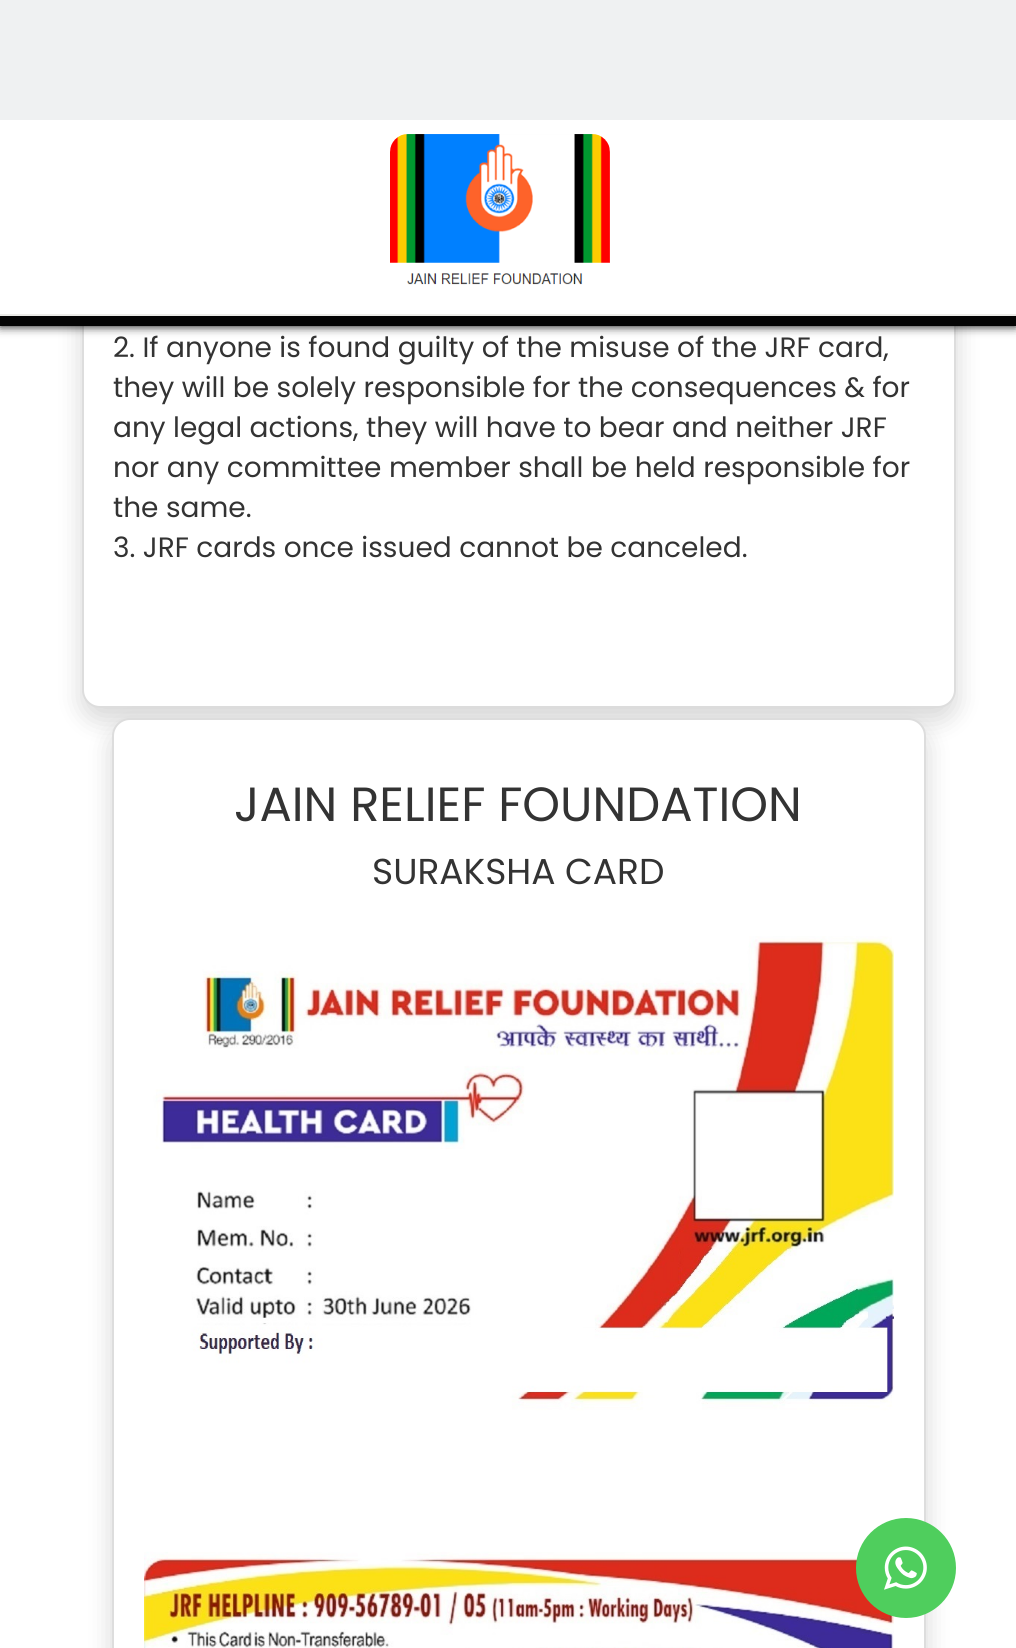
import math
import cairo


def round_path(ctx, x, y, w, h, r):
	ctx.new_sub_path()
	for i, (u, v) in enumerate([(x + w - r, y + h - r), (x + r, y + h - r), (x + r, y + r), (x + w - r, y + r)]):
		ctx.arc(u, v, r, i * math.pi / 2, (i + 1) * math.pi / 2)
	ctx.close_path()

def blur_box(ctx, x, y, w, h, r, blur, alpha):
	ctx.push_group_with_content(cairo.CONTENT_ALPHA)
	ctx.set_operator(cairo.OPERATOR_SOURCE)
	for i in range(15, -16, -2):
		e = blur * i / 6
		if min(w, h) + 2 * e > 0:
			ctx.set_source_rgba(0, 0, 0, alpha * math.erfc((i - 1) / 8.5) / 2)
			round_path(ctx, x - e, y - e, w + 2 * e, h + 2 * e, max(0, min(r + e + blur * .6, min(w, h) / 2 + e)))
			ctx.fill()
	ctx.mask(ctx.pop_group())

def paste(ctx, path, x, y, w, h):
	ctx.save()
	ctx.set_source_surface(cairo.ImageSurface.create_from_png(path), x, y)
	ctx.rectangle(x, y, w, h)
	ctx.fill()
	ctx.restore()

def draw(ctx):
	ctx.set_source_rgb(1, 1, 1)
	ctx.paint()
	ctx.set_source_rgb(0, 0, 0)
	blur_box(ctx, 82, 124, 874, 596, 18, 13, 0.16)
	ctx.set_source_rgb(1, 1, 1)
	round_path(ctx, 83, 113, 872, 594, 17)
	ctx.fill_preserve()
	ctx.set_source_rgb(0.867, 0.867, 0.867)
	ctx.stroke()
	ctx.set_source_rgb(0, 0, 0)
	blur_box(ctx, 0, 0, 1016, 326, 0, 5, 1)
	ctx.set_source_rgb(0.918, 0.918, 0.91)
	ctx.rectangle(0, 314, 1016, 2)
	ctx.fill()
	ctx.set_source_rgb(0.016, 0.016, 0.016)
	ctx.rectangle(0, 316, 1016, 10)
	ctx.fill()
	ctx.set_source_rgb(1, 1, 1)
	ctx.rectangle(0, 120, 1016, 194)
	ctx.fill()
	ctx.set_source_rgb(0.937, 0.945, 0.949)
	ctx.rectangle(0, 0, 1016, 120)
	ctx.fill()
	paste(ctx, 'media/1.png', 390, 134, 220, 151)
	ctx.select_font_face('Poppins')
	ctx.set_font_size(28)
	ctx.set_source_rgb(0.2, 0.2, 0.2)
	for x, y, s in [
		(113, 357, '2. If anyone is found guilty of the misuse of the JRF card,'),
		(113, 397, 'they will be solely responsible for the consequences & for'),
		(113, 437, 'any legal actions, they will have to bear and neither JRF'),
		(113, 477, 'nor any committee member shall be held responsible for'),
		(113, 517, 'the same.'),
		(113, 557, '3. JRF cards once issued cannot be canceled.'),
	]:
		ctx.move_to(x, y)
		ctx.show_text(s)
	ctx.set_source_rgb(0, 0, 0)
	blur_box(ctx, 112, 730, 814, 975, 18, 13, 0.16)
	ctx.set_source_rgb(1, 1, 1)
	round_path(ctx, 113, 719, 812, 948, 17)
	ctx.fill_preserve()
	ctx.set_source_rgb(0.867, 0.867, 0.867)
	ctx.stroke()
	ctx.set_font_size(48)
	ctx.set_source_rgb(0.2, 0.2, 0.2)
	ctx.move_to(234, 821)
	ctx.show_text('JAIN RELIEF FOUNDATION')
	ctx.set_font_size(36)
	ctx.move_to(372, 884)
	ctx.show_text('SURAKSHA CARD')
	paste(ctx, 'media/2.png', 144, 936, 750, 712)
	ctx.set_source_rgb(0.31, 0.808, 0.365)
	ctx.arc(906, 1568, 50, 0, 2 * math.pi)
	ctx.fill()
	paste(ctx, 'media/3.png', 884, 1546, 43, 44)


surface = cairo.ImageSurface(cairo.FORMAT_RGB24, 1016, 1648)
ctx = cairo.Context(surface)
options = cairo.FontOptions()
options.set_hint_metrics(cairo.HINT_METRICS_OFF)
options.set_hint_style(cairo.HINT_STYLE_NONE)
ctx.set_font_options(options)
ctx.set_miter_limit(4)
draw(ctx)
surface.write_to_png('image.png')
